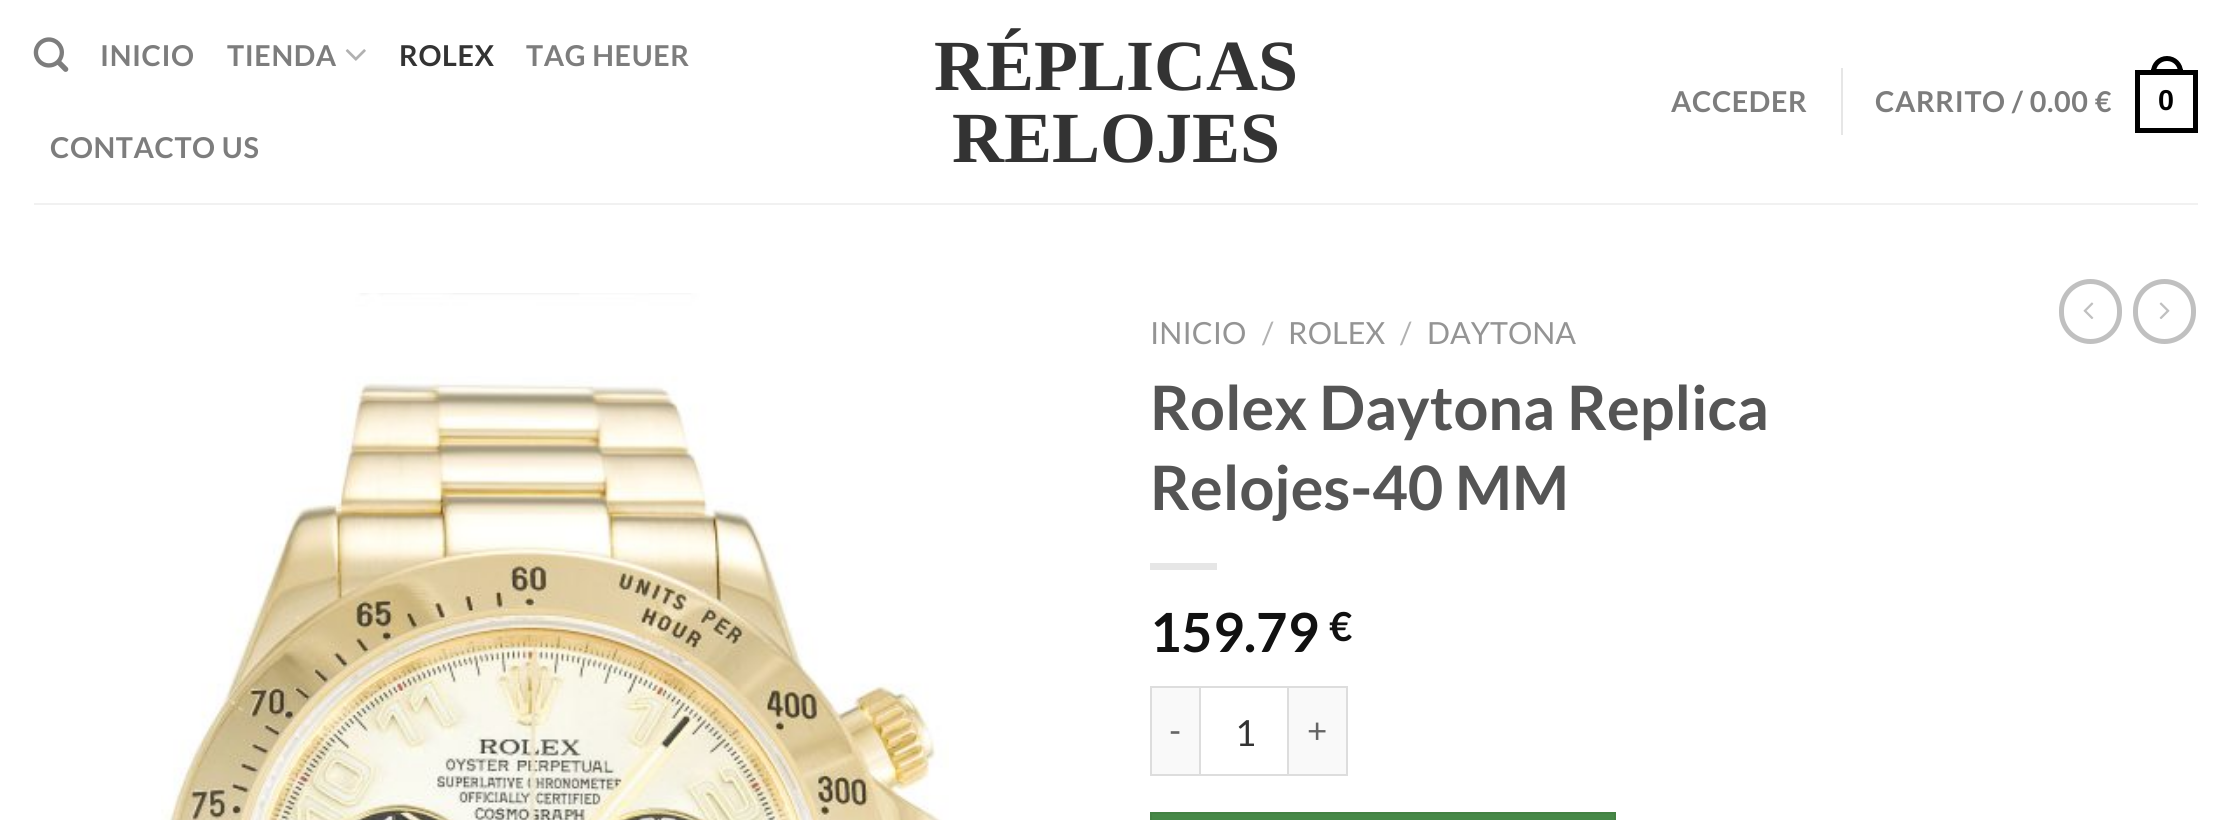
import math
import cairo


def write_spaced(ctx, x, y, s, letter, word):
	ctx.move_to(x, y)
	for ch in s:
		ctx.show_text(ch)
		ctx.rel_move_to(letter + word * (ch == ' '), 0)

def round_path(ctx, x, y, w, h, r):
	ctx.new_sub_path()
	for i, (u, v) in enumerate([(x + w - r, y + h - r), (x + r, y + h - r), (x + r, y + r), (x + w - r, y + r)]):
		ctx.arc(u, v, r, i * math.pi / 2, (i + 1) * math.pi / 2)
	ctx.close_path()

def paste(ctx, path, x, y, w, h):
	ctx.save()
	ctx.set_source_surface(cairo.ImageSurface.create_from_png(path), x, y)
	ctx.rectangle(x, y, w, h)
	ctx.fill()
	ctx.restore()

def draw(ctx):
	ctx.set_source_rgb(1, 1, 1)
	ctx.paint()
	paste(ctx, 'media/1.png', 33, 37, 36, 35)
	ctx.select_font_face('Lato', cairo.FONT_SLANT_NORMAL, cairo.FONT_WEIGHT_BOLD)
	ctx.set_font_size(28.75)
	ctx.set_source_rgb(0.49, 0.49, 0.49)
	write_spaced(ctx, 100, 66, 'INICIO', 0.6, 0)
	write_spaced(ctx, 227, 66, 'TIENDA', 0.6, 0)
	paste(ctx, 'media/2.png', 345, 49, 21, 12)
	ctx.set_source_rgb(0.2, 0.2, 0.2)
	write_spaced(ctx, 399, 66, 'ROLEX', 0.6, 0)
	ctx.set_source_rgb(0.49, 0.49, 0.49)
	write_spaced(ctx, 526, 66, 'TAG HEUER', 0.6, 0)
	write_spaced(ctx, 50, 158, 'CONTACTO US', 0.6, 0)
	ctx.select_font_face('Liberation Serif', cairo.FONT_SLANT_NORMAL, cairo.FONT_WEIGHT_BOLD)
	ctx.set_font_size(72)
	ctx.set_source_rgb(0.2, 0.2, 0.2)
	ctx.move_to(934, 90)
	ctx.show_text('RÉPLICAS')
	ctx.move_to(952, 162)
	ctx.show_text('RELOJES')
	ctx.select_font_face('Lato', cairo.FONT_SLANT_NORMAL, cairo.FONT_WEIGHT_BOLD)
	ctx.set_font_size(28.75)
	ctx.set_source_rgb(0.49, 0.49, 0.49)
	write_spaced(ctx, 1671, 112, 'ACCEDER', 0.6, 0)
	ctx.set_source_rgb(0.902, 0.902, 0.902)
	ctx.rectangle(1841, 68, 2, 67)
	ctx.fill()
	ctx.set_source_rgb(0.49, 0.49, 0.49)
	write_spaced(ctx, 1875, 112, 'CARRITO / 0.00 €', 0.6, 0)
	ctx.rectangle(2137.5, 72.5, 58, 58)
	ctx.set_source_rgb(0, 0, 0)
	ctx.set_line_width(5)
	ctx.stroke()
	ctx.new_path()
	ctx.move_to(2167, 58.5)
	ctx.curve_to(2174.5, 58.5, 2180.5, 64.5, 2180.5, 72)
	ctx.line_to(2180.5, 71.5)
	ctx.line_to(2153.5, 71.5)
	ctx.line_to(2153.5, 72)
	ctx.curve_to(2153.5, 64.5, 2159.5, 58.5, 2167, 58.5)
	ctx.close_path()
	ctx.stroke()
	ctx.select_font_face('Liberation Sans', cairo.FONT_SLANT_NORMAL, cairo.FONT_WEIGHT_BOLD)
	write_spaced(ctx, 2158, 110, '0', 0.6, 0)
	ctx.set_source_rgb(0.945, 0.945, 0.945)
	ctx.rectangle(34, 203, 2164, 2)
	ctx.fill()
	paste(ctx, 'media/3.png', 161, 293, 788, 527)
	ctx.select_font_face('Lato')
	ctx.set_font_size(30.5)
	ctx.set_source_rgb(0.58, 0.58, 0.58)
	ctx.move_to(1150, 344)
	ctx.show_text('INICIO')
	ctx.set_source_rgb(0.698, 0.698, 0.698)
	ctx.move_to(1262, 344)
	ctx.show_text('/')
	ctx.set_source_rgb(0.58, 0.58, 0.58)
	ctx.move_to(1288, 344)
	ctx.show_text('ROLEX')
	ctx.set_source_rgb(0.698, 0.698, 0.698)
	ctx.move_to(1400, 344)
	ctx.show_text('/')
	ctx.set_source_rgb(0.58, 0.58, 0.58)
	ctx.move_to(1427, 344)
	ctx.show_text('DAYTONA')
	ctx.select_font_face('Lato', cairo.FONT_SLANT_NORMAL, cairo.FONT_WEIGHT_BOLD)
	ctx.set_font_size(61.25)
	ctx.set_source_rgb(0.333, 0.333, 0.333)
	ctx.move_to(1150, 430)
	ctx.show_text('Rolex Daytona Replica')
	ctx.move_to(1150, 510)
	ctx.show_text('Relojes-40 MM')
	ctx.set_source_rgb(0.902, 0.902, 0.902)
	ctx.rectangle(1150, 563, 67, 7)
	ctx.fill()
	ctx.set_font_size(54)
	ctx.set_source_rgb(0.067, 0.067, 0.067)
	ctx.move_to(1150, 652)
	ctx.show_text('159.79')
	ctx.set_font_size(40)
	ctx.move_to(1329, 641)
	ctx.show_text('€')
	ctx.set_source_rgb(0.976, 0.976, 0.976)
	ctx.rectangle(1152, 688, 47, 86)
	ctx.fill()
	ctx.set_source_rgb(0.867, 0.867, 0.867)
	ctx.rectangle(1150, 686, 49, 2)
	ctx.rectangle(1150, 774, 49, 2)
	ctx.rectangle(1150, 686, 2, 90)
	ctx.fill()
	ctx.select_font_face('Lato')
	ctx.set_font_size(35)
	ctx.set_source_rgb(0.4, 0.4, 0.4)
	write_spaced(ctx, 1169, 743, '-', 1, 0)
	ctx.rectangle(1200, 687, 88, 88)
	ctx.set_source_rgb(0.867, 0.867, 0.867)
	ctx.set_line_width(2)
	ctx.stroke()
	ctx.set_font_size(36)
	ctx.set_source_rgb(0.2, 0.2, 0.2)
	ctx.move_to(1235, 746)
	ctx.show_text('1')
	ctx.set_source_rgb(0.976, 0.976, 0.976)
	ctx.rectangle(1289, 688, 57, 86)
	ctx.fill()
	ctx.set_source_rgb(0.867, 0.867, 0.867)
	ctx.rectangle(1289, 686, 59, 2)
	ctx.rectangle(1346, 686, 2, 90)
	ctx.rectangle(1289, 774, 59, 2)
	ctx.fill()
	ctx.set_font_size(35)
	ctx.set_source_rgb(0.4, 0.4, 0.4)
	write_spaced(ctx, 1307, 743, '+', 1, 0)
	ctx.set_source_rgb(0.275, 0.533, 0.278)
	ctx.rectangle(1151, 813, 464, 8)
	ctx.fill_preserve()
	ctx.set_source_rgb(0.263, 0.506, 0.263)
	ctx.stroke()
	round_path(ctx, 2061.5, 281.5, 58, 60, 29)
	ctx.set_source_rgb(0.753, 0.753, 0.753)
	ctx.set_line_width(5)
	ctx.stroke()
	paste(ctx, 'media/4.png', 2083, 302, 11, 17)
	round_path(ctx, 2135.5, 281.5, 58, 60, 29)
	ctx.stroke()
	paste(ctx, 'media/5.png', 2159, 302, 11, 17)


surface = cairo.ImageSurface(cairo.FORMAT_RGB24, 2230, 820)
ctx = cairo.Context(surface)
options = cairo.FontOptions()
options.set_hint_metrics(cairo.HINT_METRICS_OFF)
options.set_hint_style(cairo.HINT_STYLE_NONE)
ctx.set_font_options(options)
ctx.set_miter_limit(4)
draw(ctx)
surface.write_to_png('image.png')
